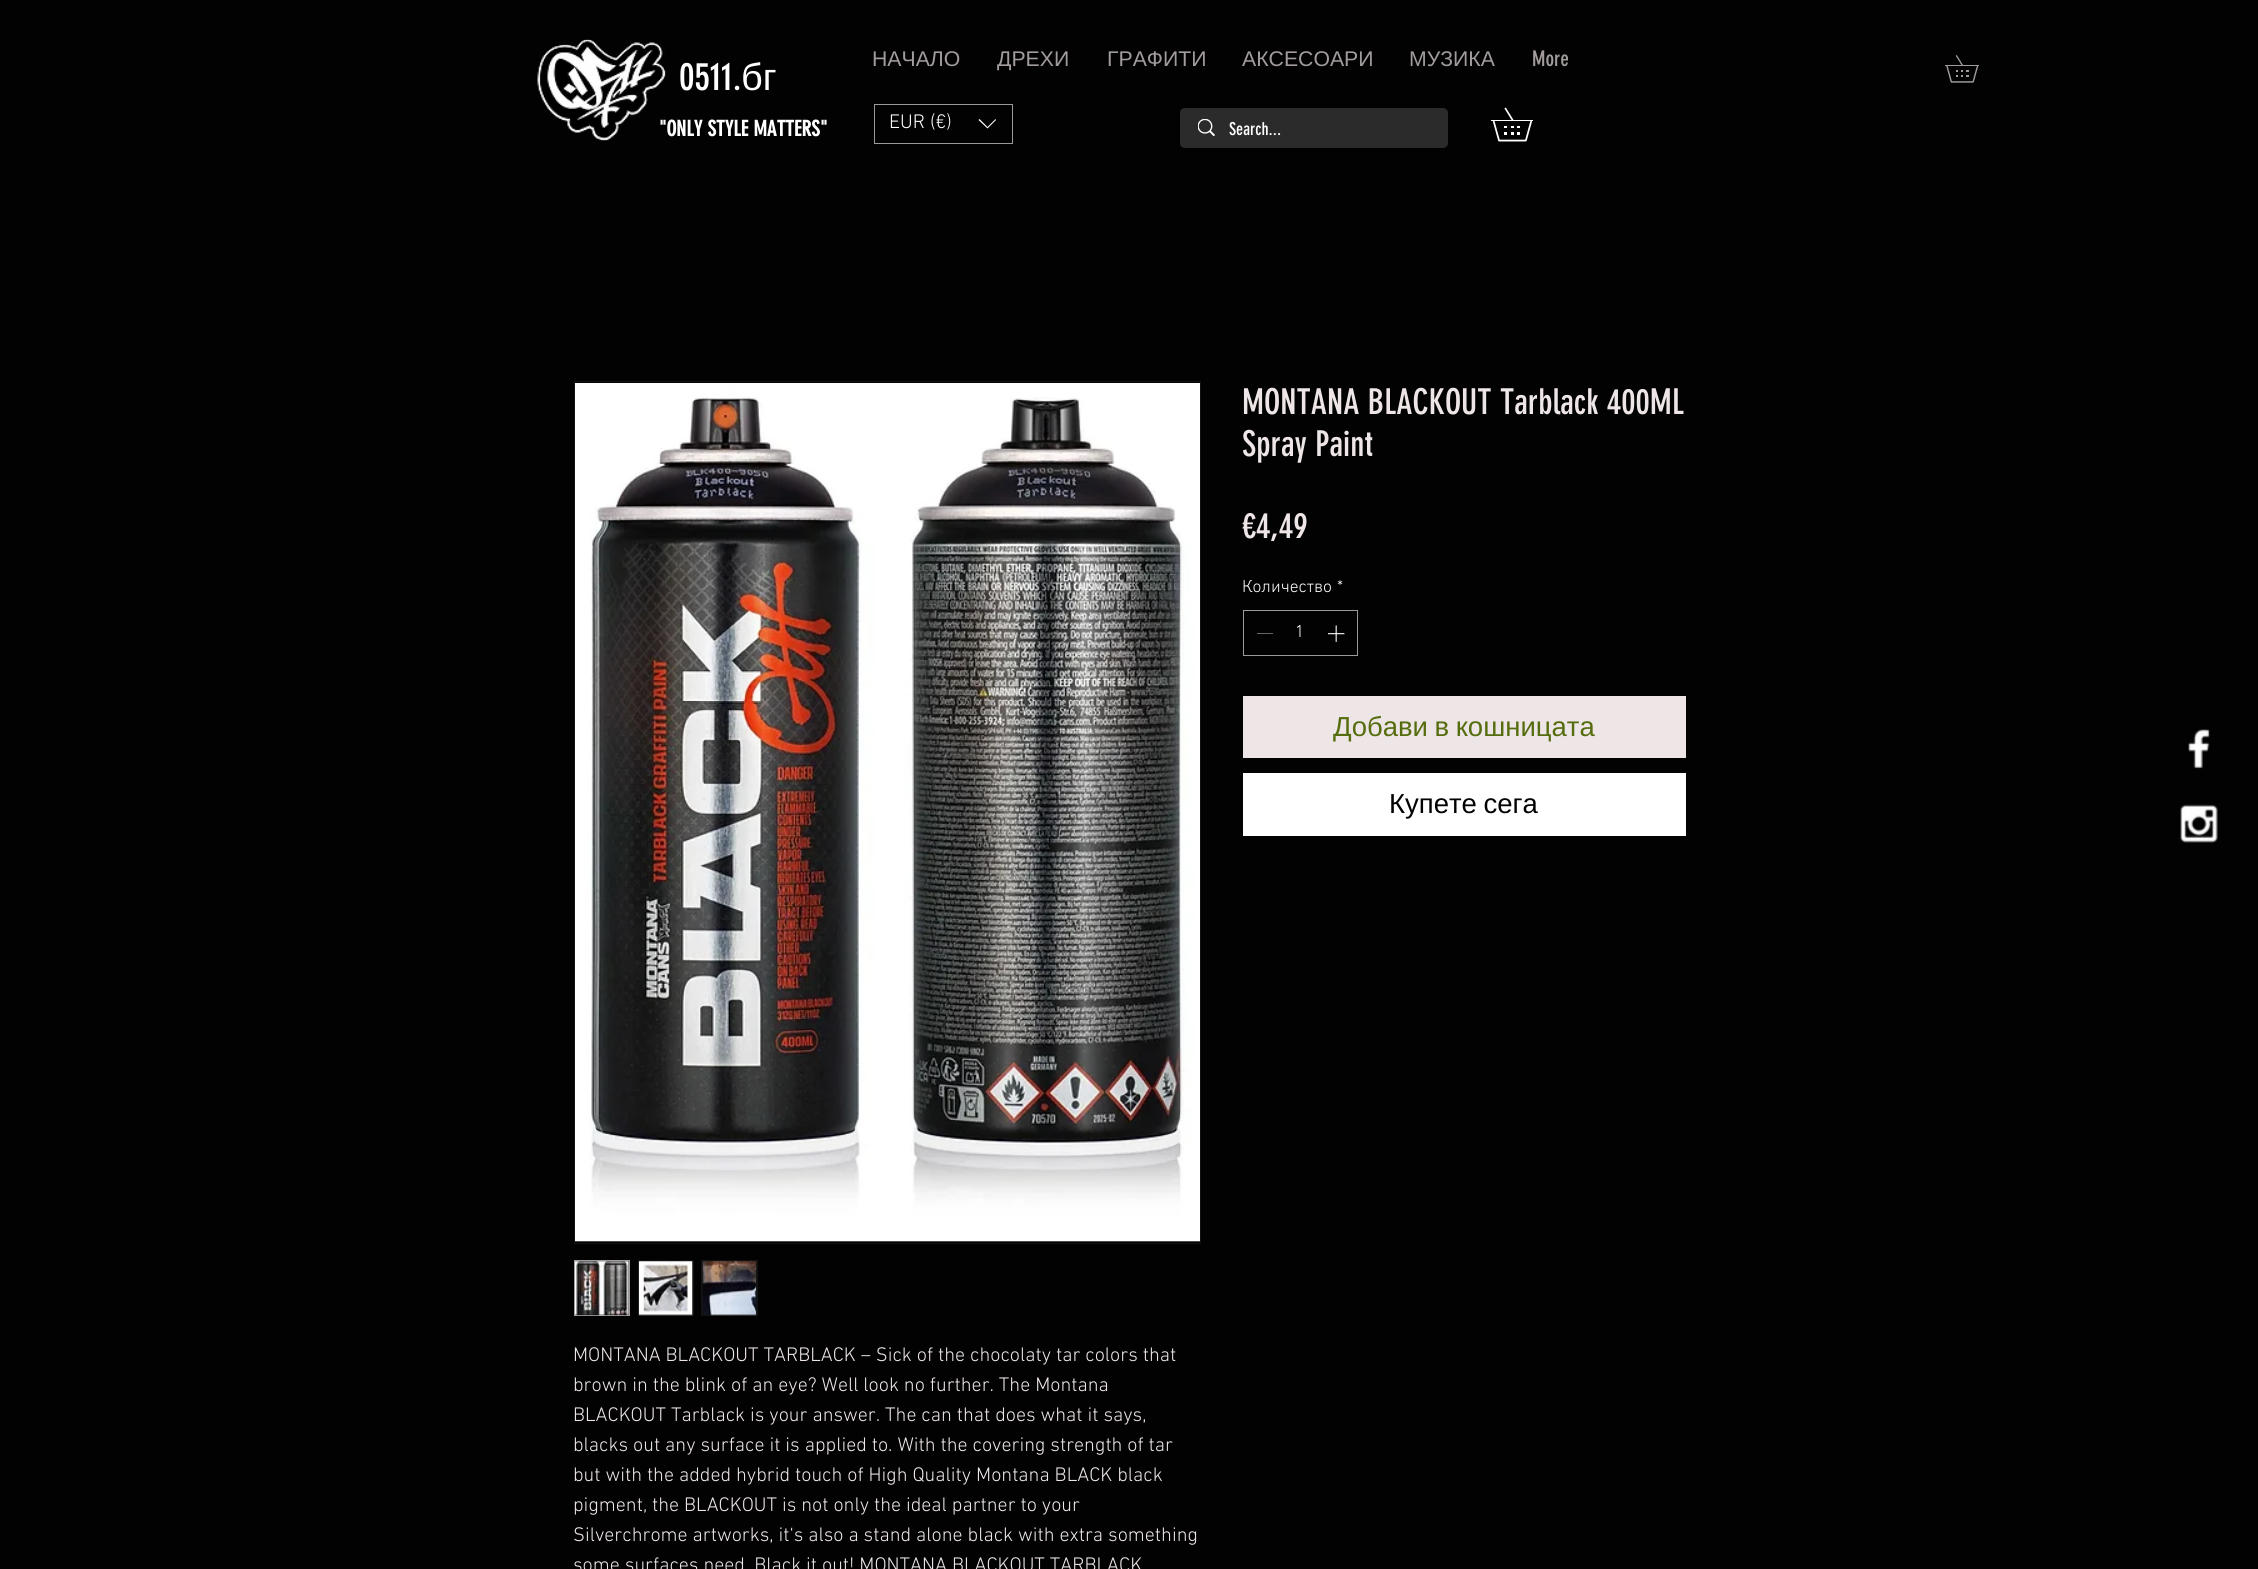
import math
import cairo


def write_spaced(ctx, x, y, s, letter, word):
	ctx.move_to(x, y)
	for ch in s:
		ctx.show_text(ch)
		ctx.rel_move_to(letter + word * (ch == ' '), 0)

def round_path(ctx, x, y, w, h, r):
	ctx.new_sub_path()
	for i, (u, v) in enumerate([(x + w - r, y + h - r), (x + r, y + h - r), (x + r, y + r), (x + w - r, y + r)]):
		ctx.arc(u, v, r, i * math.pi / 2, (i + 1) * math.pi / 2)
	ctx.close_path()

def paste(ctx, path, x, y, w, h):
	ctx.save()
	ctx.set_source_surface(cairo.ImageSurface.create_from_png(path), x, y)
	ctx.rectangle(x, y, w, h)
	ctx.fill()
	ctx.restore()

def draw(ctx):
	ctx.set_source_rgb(0.008, 0.008, 0.008)
	ctx.paint()
	paste(ctx, 'media/1.png', 537, 39, 129, 103)
	ctx.select_font_face('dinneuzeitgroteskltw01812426')
	ctx.set_font_size(38)
	ctx.set_source_rgb(1, 1, 1)
	ctx.move_to(679, 90)
	ctx.show_text('0511.')
	ctx.select_font_face('Liberation Sans')
	ctx.move_to(741, 90)
	ctx.show_text('бг')
	ctx.set_font_size(21.25)
	ctx.set_source_rgb(0.635, 0.612, 0.612)
	for x, y, s in [
		(872, 66, 'НАЧАЛО'),
		(997, 66, 'ДРЕХИ'),
		(1107, 66, 'ГРАФИТИ'),
		(1242, 66, 'АКСЕСОАРИ'),
		(1409, 66, 'МУЗИКА'),
	]:
		ctx.move_to(x, y)
		ctx.show_text(s)
	ctx.select_font_face('dinneuzeitgroteskltw01812426')
	ctx.move_to(1532, 66)
	ctx.show_text('More')
	paste(ctx, 'media/2.png', 1945, 55, 34, 28)
	ctx.select_font_face('dinneuzeitgroteskltw01812426', cairo.FONT_SLANT_NORMAL, cairo.FONT_WEIGHT_BOLD)
	ctx.set_source_rgb(1, 1, 1)
	ctx.move_to(659, 136)
	ctx.show_text('"ONLY STYLE MATTERS"')
	ctx.rectangle(874.5, 104.5, 138, 39)
	ctx.set_source_rgb(0.604, 0.604, 0.604)
	ctx.set_line_width(1)
	ctx.stroke()
	ctx.select_font_face('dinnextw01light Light')
	ctx.set_font_size(20)
	ctx.set_source_rgb(1, 1, 1)
	ctx.move_to(889, 128)
	ctx.show_text('EUR (€)')
	ctx.set_fill_rule(cairo.FILL_RULE_EVEN_ODD)
	ctx.new_path()
	ctx.move_to(995.5, 119)
	ctx.line_to(996, 120)
	ctx.line_to(987.5, 128.5)
	ctx.line_to(978.5, 120)
	ctx.line_to(979.5, 119)
	ctx.line_to(987.5, 127)
	ctx.close_path()
	ctx.fill()
	ctx.set_source_rgb(0.169, 0.169, 0.169)
	round_path(ctx, 1180, 108, 268, 40, 5)
	ctx.fill()
	paste(ctx, 'media/3.png', 1198, 119, 17, 17)
	ctx.select_font_face('dinneuzeitgroteskltw01812426')
	ctx.set_font_size(17.5)
	ctx.set_source_rgb(1, 1, 1)
	ctx.move_to(1229, 135)
	ctx.show_text('Search...')
	paste(ctx, 'media/4.png', 1491, 107, 42, 35)
	ctx.set_font_size(35)
	ctx.set_source_rgb(0.933, 0.902, 0.902)
	for x, y, s in [
		(1242, 414, 'MONTANA BLACKOUT Tarblack 400ML'),
		(1242, 456, 'Spray Paint'),
		(1242, 538, '€4,49'),
	]:
		ctx.move_to(x, y)
		ctx.show_text(s)
	ctx.select_font_face('dinnextw01light Light')
	ctx.set_font_size(17.5)
	ctx.set_source_rgb(1, 1, 1)
	ctx.move_to(1242, 592)
	ctx.show_text('Количество')
	ctx.move_to(1337, 592)
	ctx.show_text('*')
	ctx.rectangle(1243.5, 610.5, 114, 45)
	ctx.set_source_rgb(0.604, 0.604, 0.604)
	ctx.stroke()
	ctx.set_source_rgb(0.396, 0.396, 0.396)
	ctx.rectangle(1257, 633, 16, 1)
	ctx.fill()
	ctx.set_source_rgb(1, 1, 1)
	ctx.move_to(1295, 637)
	ctx.show_text('1')
	paste(ctx, 'media/5.png', 1327, 625, 18, 17)
	ctx.set_source_rgb(0.933, 0.902, 0.902)
	ctx.rectangle(1243, 696, 443, 62)
	ctx.fill()
	ctx.select_font_face('Liberation Sans')
	ctx.set_font_size(27.5)
	ctx.set_source_rgb(0.333, 0.427, 0.055)
	write_spaced(ctx, 1333, 736, 'Добави в кошницата', 0, -1)
	ctx.set_source_rgb(1, 1, 1)
	ctx.rectangle(1243, 773, 443, 63)
	ctx.fill()
	ctx.set_source_rgb(0.008, 0.008, 0.008)
	write_spaced(ctx, 1389, 813, 'Купете сега', 0, -1)
	ctx.rectangle(574.5, 381.5, 626, 862)
	ctx.set_source_rgb(0.078, 0.078, 0.078)
	ctx.stroke()
	paste(ctx, 'media/6.png', 575, 383, 625, 859)
	ctx.rectangle(574.5, 1260.5, 55, 55)
	ctx.fill_preserve()
	ctx.set_source_rgb(0.635, 0.612, 0.612)
	ctx.stroke()
	paste(ctx, 'media/7.png', 575, 1261, 54, 55)
	ctx.set_source_rgb(0.078, 0.078, 0.078)
	ctx.rectangle(638, 1260, 56, 56)
	ctx.fill()
	paste(ctx, 'media/8.png', 638, 1261, 55, 55)
	ctx.rectangle(701, 1260, 57, 56)
	ctx.fill()
	paste(ctx, 'media/9.png', 702, 1261, 55, 55)
	ctx.select_font_face('dinnextw01light Light')
	ctx.set_font_size(20)
	ctx.set_source_rgb(0.933, 0.902, 0.902)
	for x, y, s in [
		(573, 1361, 'MONTANA BLACKOUT TARBLACK – Sick of the chocolaty tar colors that'),
		(573, 1391, 'brown in the blink of an eye? Well look no further. The Montana'),
		(573, 1421, 'BLACKOUT Tarblack is your answer. The can that does what it says,'),
		(573, 1451, 'blacks out any surface it is applied to. With the covering strength of tar'),
		(573, 1481, 'but with the added hybrid touch of High Quality Montana BLACK black'),
		(573, 1511, 'pigment, the BLACKOUT is not only the ideal partner to your'),
		(573, 1541, 'Silverchrome artworks, it‘s also a stand alone black with extra something'),
		(573, 1571, 'some surfaces need. Black it out! MONTANA BLACKOUT TARBLACK'),
	]:
		ctx.move_to(x, y)
		ctx.show_text(s)
	paste(ctx, 'media/10.png', 2188, 729, 22, 40)
	paste(ctx, 'media/11.png', 2180, 804, 38, 39)


surface = cairo.ImageSurface(cairo.FORMAT_RGB24, 2258, 1569)
ctx = cairo.Context(surface)
options = cairo.FontOptions()
options.set_hint_metrics(cairo.HINT_METRICS_OFF)
options.set_hint_style(cairo.HINT_STYLE_NONE)
ctx.set_font_options(options)
ctx.set_miter_limit(4)
draw(ctx)
surface.write_to_png('image.png')
